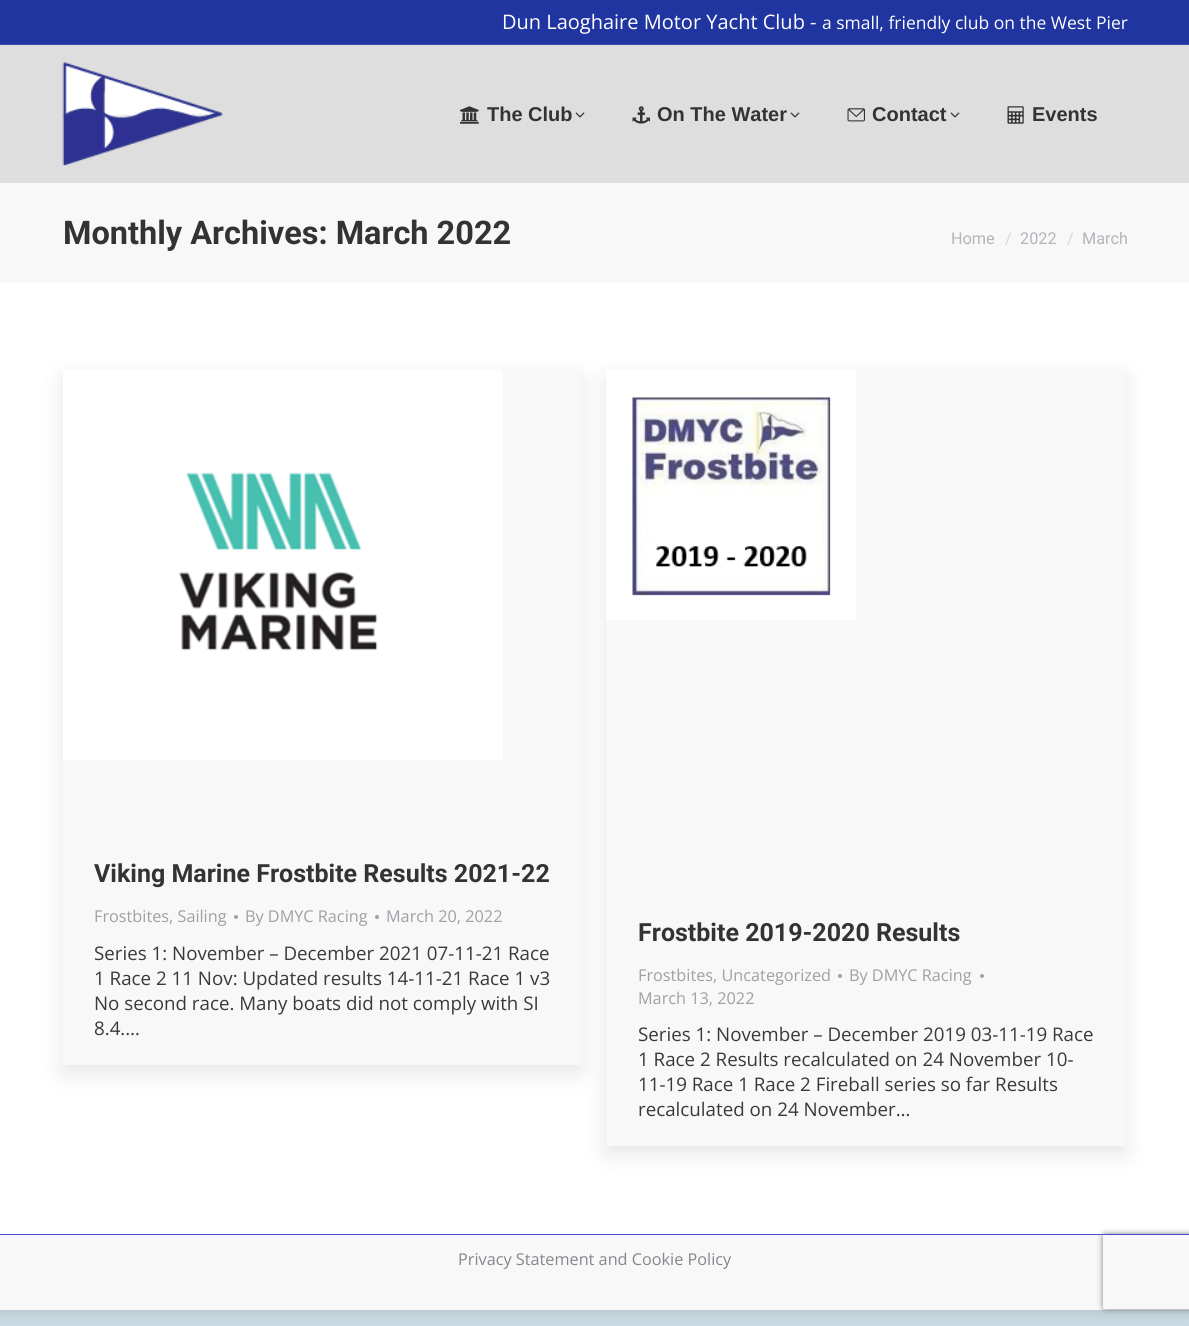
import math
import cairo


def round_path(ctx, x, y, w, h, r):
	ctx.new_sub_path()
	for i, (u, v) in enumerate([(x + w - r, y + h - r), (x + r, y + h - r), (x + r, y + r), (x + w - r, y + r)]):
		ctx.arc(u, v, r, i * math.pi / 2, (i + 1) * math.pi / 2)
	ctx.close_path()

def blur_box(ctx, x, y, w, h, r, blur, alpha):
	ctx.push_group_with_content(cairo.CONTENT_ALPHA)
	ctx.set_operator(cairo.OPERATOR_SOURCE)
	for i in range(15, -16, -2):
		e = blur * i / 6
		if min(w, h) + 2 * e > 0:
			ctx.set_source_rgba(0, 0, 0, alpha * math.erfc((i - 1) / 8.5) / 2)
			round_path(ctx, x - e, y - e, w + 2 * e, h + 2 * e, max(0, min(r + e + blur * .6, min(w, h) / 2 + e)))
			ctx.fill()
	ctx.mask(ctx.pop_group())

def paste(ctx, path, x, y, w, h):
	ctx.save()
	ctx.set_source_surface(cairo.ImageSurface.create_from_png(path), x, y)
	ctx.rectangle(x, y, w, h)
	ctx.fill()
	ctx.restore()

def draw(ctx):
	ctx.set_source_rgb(0.788, 0.859, 0.886)
	ctx.paint()
	ctx.set_source_rgb(0, 0, 0)
	blur_box(ctx, 0, 0, 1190, 1310, 0, 7.5, 0.15)
	ctx.set_source_rgb(1, 1, 1)
	ctx.rectangle(0, 45, 1189, 1189)
	ctx.fill()
	ctx.set_source_rgba(0, 0, 0, 0.13)
	ctx.rectangle(0, 45, 1189, 138)
	ctx.fill()
	ctx.set_source_rgb(0.125, 0.208, 0.627)
	ctx.rectangle(0, 0, 1189, 44)
	ctx.fill()
	ctx.select_font_face('Open Sans')
	ctx.set_font_size(20)
	ctx.set_source_rgb(1, 1, 1)
	ctx.move_to(502, 29)
	ctx.show_text('Dun Laoghaire Motor Yacht Club -')
	ctx.set_font_size(17.5)
	ctx.move_to(822, 29)
	ctx.show_text('a small, friendly club on the West Pier')
	ctx.set_source_rgb(0.231, 0.302, 0.671)
	ctx.rectangle(0, 44, 1189, 1)
	ctx.fill()
	paste(ctx, 'media/1.png', 62, 62, 161, 104)
	paste(ctx, 'media/2.png', 460, 106, 19, 18)
	ctx.select_font_face('Liberation Sans', cairo.FONT_SLANT_NORMAL, cairo.FONT_WEIGHT_BOLD)
	ctx.set_font_size(20)
	ctx.set_source_rgb(0.2, 0.2, 0.2)
	ctx.move_to(487, 121)
	ctx.show_text('The Club')
	paste(ctx, 'media/3.png', 575, 112, 10, 6)
	paste(ctx, 'media/4.png', 632, 106, 18, 18)
	ctx.move_to(657, 121)
	ctx.show_text('On The Water')
	paste(ctx, 'media/3.png', 790, 112, 10, 6)
	paste(ctx, 'media/5.png', 847, 108, 18, 14)
	ctx.move_to(872, 121)
	ctx.show_text('Contact')
	paste(ctx, 'media/3.png', 950, 112, 10, 6)
	paste(ctx, 'media/6.png', 1007, 106, 17, 18)
	ctx.move_to(1032, 121)
	ctx.show_text('Events')
	ctx.set_source_rgb(0.969, 0.969, 0.969)
	ctx.rectangle(0, 183, 1189, 100)
	ctx.fill()
	ctx.select_font_face('Roboto', cairo.FONT_SLANT_NORMAL, cairo.FONT_WEIGHT_BOLD)
	ctx.set_font_size(32.5)
	ctx.set_source_rgb(0.2, 0.2, 0.2)
	ctx.move_to(63, 244)
	ctx.show_text('Monthly Archives: March 2022')
	ctx.select_font_face('Roboto')
	ctx.set_font_size(16.25)
	ctx.set_source_rgb(0.706, 0.71, 0.733)
	ctx.move_to(951, 244)
	ctx.show_text('Home')
	ctx.set_source_rgb(0.839, 0.839, 0.851)
	ctx.move_to(1005, 244)
	ctx.show_text('/')
	ctx.set_source_rgb(0.706, 0.71, 0.733)
	ctx.move_to(1020, 244)
	ctx.show_text('2022')
	ctx.set_source_rgb(0.839, 0.839, 0.851)
	ctx.move_to(1067, 244)
	ctx.show_text('/')
	ctx.set_source_rgb(0.706, 0.71, 0.733)
	ctx.move_to(1082, 244)
	ctx.show_text('March')
	ctx.set_source_rgb(0, 0, 0)
	blur_box(ctx, 63, 378, 518, 695, 0, 11, 0.1)
	ctx.set_source_rgb(0.969, 0.969, 0.969)
	ctx.rectangle(63, 370, 518, 695)
	ctx.fill()
	paste(ctx, 'media/7.png', 63, 370, 440, 390)
	ctx.select_font_face('Roboto', cairo.FONT_SLANT_NORMAL, cairo.FONT_WEIGHT_BOLD)
	ctx.set_font_size(25)
	ctx.set_source_rgb(0.2, 0.2, 0.2)
	ctx.move_to(94, 882)
	ctx.show_text('Viking Marine Frostbite Results 2021-22')
	ctx.select_font_face('Open Sans')
	ctx.set_font_size(16.25)
	ctx.set_source_rgb(0.624, 0.627, 0.647)
	ctx.move_to(94, 922)
	ctx.show_text('Frostbites, Sailing')
	ctx.new_path()
	ctx.arc(236, 917, 2, 0, 2 * math.pi)
	ctx.fill()
	ctx.move_to(245, 922)
	ctx.show_text('By DMYC Racing')
	ctx.new_path()
	ctx.arc(377, 917, 2, 0, 2 * math.pi)
	ctx.fill()
	ctx.move_to(386, 922)
	ctx.show_text('March 20, 2022')
	ctx.set_font_size(18.75)
	ctx.set_source_rgb(0.22, 0.227, 0.224)
	for x, y, s in [
		(94, 960, 'Series 1: November – December 2021 07-11-21 Race'),
		(94, 985, '1 Race 2 11 Nov: Updated results 14-11-21 Race 1 v3'),
		(94, 1010, 'No second race. Many boats did not comply with SI'),
		(94, 1035, '8.4.…'),
	]:
		ctx.move_to(x, y)
		ctx.show_text(s)
	ctx.set_source_rgb(0, 0, 0)
	blur_box(ctx, 606, 378, 519, 776, 0, 11, 0.1)
	ctx.set_source_rgb(0.969, 0.969, 0.969)
	ctx.rectangle(606, 370, 519, 776)
	ctx.fill()
	paste(ctx, 'media/8.png', 606, 370, 250, 250)
	ctx.select_font_face('Roboto', cairo.FONT_SLANT_NORMAL, cairo.FONT_WEIGHT_BOLD)
	ctx.set_font_size(25)
	ctx.set_source_rgb(0.2, 0.2, 0.2)
	ctx.move_to(638, 941)
	ctx.show_text('Frostbite 2019-2020 Results')
	ctx.select_font_face('Open Sans')
	ctx.set_font_size(16.25)
	ctx.set_source_rgb(0.624, 0.627, 0.647)
	ctx.move_to(638, 981)
	ctx.show_text('Frostbites, Uncategorized')
	ctx.new_path()
	ctx.arc(840, 976, 2, 0, 2 * math.pi)
	ctx.fill()
	ctx.move_to(849, 981)
	ctx.show_text('By DMYC Racing')
	ctx.new_path()
	ctx.arc(982, 976, 2, 0, 2 * math.pi)
	ctx.fill()
	ctx.move_to(638, 1004)
	ctx.show_text('March 13, 2022')
	ctx.set_font_size(18.75)
	ctx.set_source_rgb(0.22, 0.227, 0.224)
	for x, y, s in [
		(638, 1041, 'Series 1: November – December 2019 03-11-19 Race'),
		(638, 1066, '1 Race 2 Results recalculated on 24 November 10-'),
		(638, 1091, '11-19 Race 1 Race 2 Fireball series so far Results'),
		(638, 1116, 'recalculated on 24 November…'),
	]:
		ctx.move_to(x, y)
		ctx.show_text(s)
	ctx.set_source_rgb(0.969, 0.969, 0.969)
	ctx.rectangle(0, 1235, 1189, 75)
	ctx.fill()
	ctx.set_source_rgb(0.286, 0.286, 0.843)
	ctx.rectangle(0, 1234, 1189, 1)
	ctx.fill()
	ctx.set_font_size(16.25)
	ctx.set_source_rgb(0.522, 0.525, 0.549)
	ctx.move_to(458, 1265)
	ctx.show_text('Privacy Statement and Cookie Policy')
	ctx.save()
	ctx.set_fill_rule(cairo.FILL_RULE_EVEN_ODD)
	ctx.new_path()
	ctx.move_to(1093, 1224)
	ctx.line_to(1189, 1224)
	ctx.line_to(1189, 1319)
	ctx.line_to(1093, 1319)
	ctx.close_path()
	ctx.move_to(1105.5, 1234)
	ctx.line_to(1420.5, 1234)
	ctx.curve_to(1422, 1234, 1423, 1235, 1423, 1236.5)
	ctx.line_to(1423, 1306.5)
	ctx.curve_to(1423, 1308, 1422, 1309, 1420.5, 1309)
	ctx.line_to(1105.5, 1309)
	ctx.curve_to(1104, 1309, 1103, 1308, 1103, 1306.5)
	ctx.line_to(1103, 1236.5)
	ctx.curve_to(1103, 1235, 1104, 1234, 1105.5, 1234)
	ctx.close_path()
	ctx.clip()
	ctx.set_source_rgb(0.502, 0.502, 0.502)
	blur_box(ctx, 1103, 1234, 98, 75, 2.5, 3, 1)
	ctx.restore()


surface = cairo.ImageSurface(cairo.FORMAT_RGB24, 1189, 1326)
ctx = cairo.Context(surface)
options = cairo.FontOptions()
options.set_hint_metrics(cairo.HINT_METRICS_OFF)
options.set_hint_style(cairo.HINT_STYLE_NONE)
ctx.set_font_options(options)
ctx.set_miter_limit(4)
draw(ctx)
surface.write_to_png('image.png')
